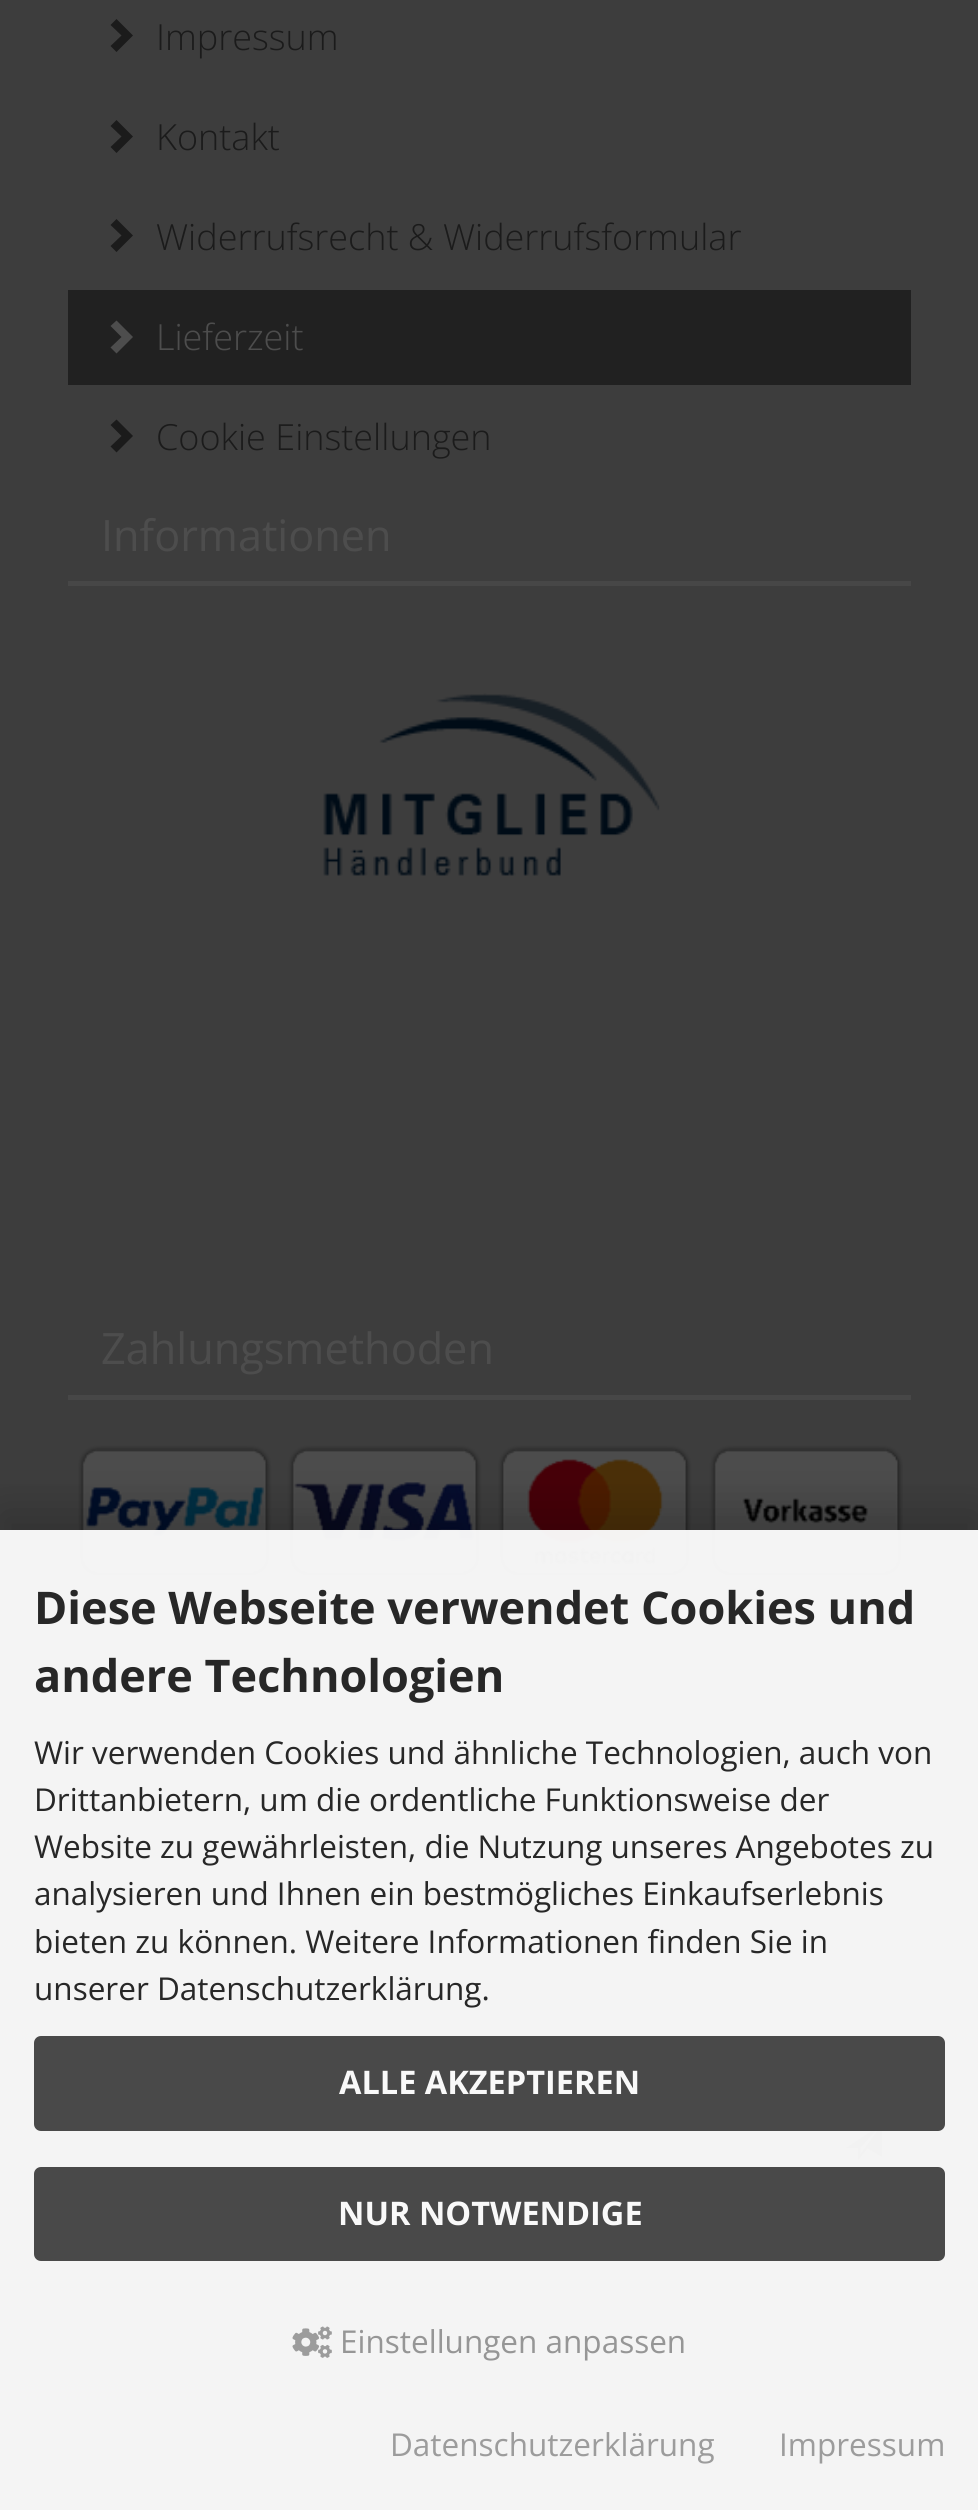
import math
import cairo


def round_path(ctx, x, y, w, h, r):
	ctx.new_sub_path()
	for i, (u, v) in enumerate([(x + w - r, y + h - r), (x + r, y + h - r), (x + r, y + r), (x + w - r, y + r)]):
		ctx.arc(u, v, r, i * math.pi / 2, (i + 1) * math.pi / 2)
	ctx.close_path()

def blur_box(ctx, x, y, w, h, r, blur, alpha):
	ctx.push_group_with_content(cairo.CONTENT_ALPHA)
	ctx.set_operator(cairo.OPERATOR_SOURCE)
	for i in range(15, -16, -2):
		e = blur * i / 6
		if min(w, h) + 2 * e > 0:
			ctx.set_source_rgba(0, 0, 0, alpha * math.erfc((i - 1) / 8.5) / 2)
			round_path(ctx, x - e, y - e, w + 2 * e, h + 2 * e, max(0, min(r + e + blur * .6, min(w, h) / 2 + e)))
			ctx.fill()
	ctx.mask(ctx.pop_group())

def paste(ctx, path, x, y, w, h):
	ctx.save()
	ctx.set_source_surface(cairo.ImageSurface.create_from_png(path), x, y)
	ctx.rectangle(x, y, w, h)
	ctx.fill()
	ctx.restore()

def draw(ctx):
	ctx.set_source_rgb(0.239, 0.239, 0.239)
	ctx.paint()
	ctx.set_source_rgb(0.106, 0.106, 0.106)
	ctx.new_path()
	ctx.move_to(133, 35.5)
	ctx.line_to(116.5, 52)
	ctx.line_to(110.5, 46)
	ctx.line_to(121.5, 35.5)
	ctx.line_to(110.5, 25)
	ctx.line_to(116.5, 19)
	ctx.close_path()
	ctx.fill()
	ctx.select_font_face('Open Sans Light')
	ctx.set_font_size(36)
	ctx.move_to(156, 50)
	ctx.show_text('Impressum')
	ctx.new_path()
	ctx.move_to(133, 136.5)
	ctx.line_to(116.5, 153)
	ctx.line_to(110.5, 147)
	ctx.line_to(121.5, 136.5)
	ctx.line_to(110.5, 126)
	ctx.line_to(116.5, 120)
	ctx.close_path()
	ctx.fill()
	ctx.move_to(156, 150)
	ctx.show_text('Kontakt')
	ctx.new_path()
	ctx.move_to(133, 235.5)
	ctx.line_to(116.5, 252)
	ctx.line_to(110.5, 246)
	ctx.line_to(121.5, 235.5)
	ctx.line_to(110.5, 225)
	ctx.line_to(116.5, 219)
	ctx.close_path()
	ctx.fill()
	ctx.move_to(156, 250)
	ctx.show_text('Widerrufsrecht & Widerrufsformular')
	ctx.set_source_rgb(0.129, 0.129, 0.129)
	ctx.rectangle(68, 290, 843, 95)
	ctx.fill()
	ctx.set_source_rgb(0.302, 0.302, 0.302)
	ctx.new_path()
	ctx.move_to(133, 337)
	ctx.line_to(116.5, 353.5)
	ctx.line_to(110.5, 347.5)
	ctx.line_to(121.5, 337)
	ctx.line_to(110.5, 326)
	ctx.line_to(116.5, 320.5)
	ctx.close_path()
	ctx.fill()
	ctx.move_to(156, 350)
	ctx.show_text('Lieferzeit')
	ctx.set_source_rgb(0.106, 0.106, 0.106)
	ctx.new_path()
	ctx.move_to(133, 436)
	ctx.line_to(116.5, 452.5)
	ctx.line_to(110.5, 446.5)
	ctx.line_to(121.5, 436)
	ctx.line_to(110.5, 425)
	ctx.line_to(116.5, 419.5)
	ctx.close_path()
	ctx.fill()
	ctx.move_to(156, 450)
	ctx.show_text('Cookie Einstellungen')
	ctx.set_source_rgb(0.278, 0.278, 0.278)
	ctx.rectangle(68, 581, 843, 5)
	ctx.fill()
	ctx.select_font_face('Open Sans')
	ctx.set_font_size(43.25)
	ctx.set_source_rgb(0.302, 0.302, 0.302)
	ctx.move_to(101, 551)
	ctx.show_text('Informationen')
	paste(ctx, 'media/1.png', 323, 693, 337, 183)
	ctx.set_source_rgb(0.278, 0.278, 0.278)
	ctx.rectangle(68, 1395, 843, 5)
	ctx.fill()
	ctx.set_source_rgb(0.302, 0.302, 0.302)
	ctx.move_to(101, 1364)
	ctx.show_text('Zahlungsmethoden')
	paste(ctx, 'media/2.png', 78, 1445, 825, 132)
	ctx.set_source_rgb(0.278, 0.278, 0.278)
	ctx.rectangle(68, 1994, 843, 5)
	ctx.fill()
	ctx.set_source_rgb(0.302, 0.302, 0.302)
	ctx.rectangle(70, 2131, 747, 36)
	ctx.fill()
	ctx.set_source_rgb(0.271, 0.271, 0.271)
	ctx.rectangle(819, 2131, 90, 36)
	ctx.fill()
	ctx.set_source_rgb(0.039, 0.039, 0.039)
	ctx.new_path()
	ctx.move_to(882, 2157)
	ctx.line_to(867.5, 2148.5)
	ctx.line_to(858, 2160.5)
	ctx.line_to(858, 2148)
	ctx.line_to(846, 2148)
	ctx.line_to(882, 2124)
	ctx.close_path()
	ctx.move_to(860.5, 2147.5)
	ctx.line_to(860.5, 2154)
	ctx.line_to(881, 2125.5)
	ctx.close_path()
	ctx.fill()
	ctx.save()
	ctx.rectangle(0, 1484, 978, 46)
	ctx.clip()
	ctx.set_source_rgb(0, 0, 0)
	blur_box(ctx, 0, 1512, 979, 981, 0, 22.5, 0.19)
	ctx.restore()
	ctx.set_source_rgba(0.976, 0.976, 0.976, 0.97)
	ctx.rectangle(0, 1530, 978, 980)
	ctx.fill()
	ctx.select_font_face('Open Sans', cairo.FONT_SLANT_NORMAL, cairo.FONT_WEIGHT_BOLD)
	ctx.set_font_size(45)
	ctx.set_source_rgb(0.153, 0.153, 0.153)
	ctx.move_to(34, 1624)
	ctx.show_text('Diese Webseite verwendet Cookies und')
	ctx.move_to(34, 1692)
	ctx.show_text('andere Technologien')
	ctx.select_font_face('Open Sans')
	ctx.set_font_size(31.5)
	for x, y, s in [
		(34, 1764, 'Wir verwenden Cookies und ähnliche Technologien, auch von'),
		(34, 1811, 'Drittanbietern, um die ordentliche Funktionsweise der'),
		(34, 1858, 'Website zu gewährleisten, die Nutzung unseres Angebotes zu'),
		(34, 1905, 'analysieren und Ihnen ein bestmögliches Einkaufserlebnis'),
		(34, 1953, 'bieten zu können. Weitere Informationen finden Sie in'),
		(34, 2000, 'unserer Datenschutzerklärung.'),
	]:
		ctx.move_to(x, y)
		ctx.show_text(s)
	ctx.set_source_rgb(0.286, 0.286, 0.286)
	round_path(ctx, 34, 2036, 911, 95, 7)
	ctx.fill()
	ctx.select_font_face('Open Sans', cairo.FONT_SLANT_NORMAL, cairo.FONT_WEIGHT_BOLD)
	ctx.set_font_size(32.5)
	ctx.set_source_rgb(0.976, 0.976, 0.976)
	ctx.move_to(339, 2094)
	ctx.show_text('ALLE AKZEPTIEREN')
	ctx.set_source_rgb(0.286, 0.286, 0.286)
	round_path(ctx, 34, 2167, 911, 94, 7)
	ctx.fill()
	ctx.set_source_rgb(0.976, 0.976, 0.976)
	ctx.move_to(338, 2225)
	ctx.show_text('NUR NOTWENDIGE')
	paste(ctx, 'media/3.png', 292, 2326, 40, 32)
	ctx.select_font_face('Open Sans')
	ctx.set_font_size(31.5)
	ctx.set_source_rgb(0.588, 0.588, 0.588)
	ctx.move_to(340, 2353)
	ctx.show_text('Einstellungen anpassen')
	ctx.set_source_rgb(0.612, 0.612, 0.612)
	ctx.move_to(390, 2456)
	ctx.show_text('Datenschutzerklärung')
	ctx.move_to(779, 2456)
	ctx.show_text('Impressum')


surface = cairo.ImageSurface(cairo.FORMAT_RGB24, 978, 2510)
ctx = cairo.Context(surface)
options = cairo.FontOptions()
options.set_hint_metrics(cairo.HINT_METRICS_OFF)
options.set_hint_style(cairo.HINT_STYLE_NONE)
ctx.set_font_options(options)
ctx.set_miter_limit(4)
draw(ctx)
surface.write_to_png('image.png')
